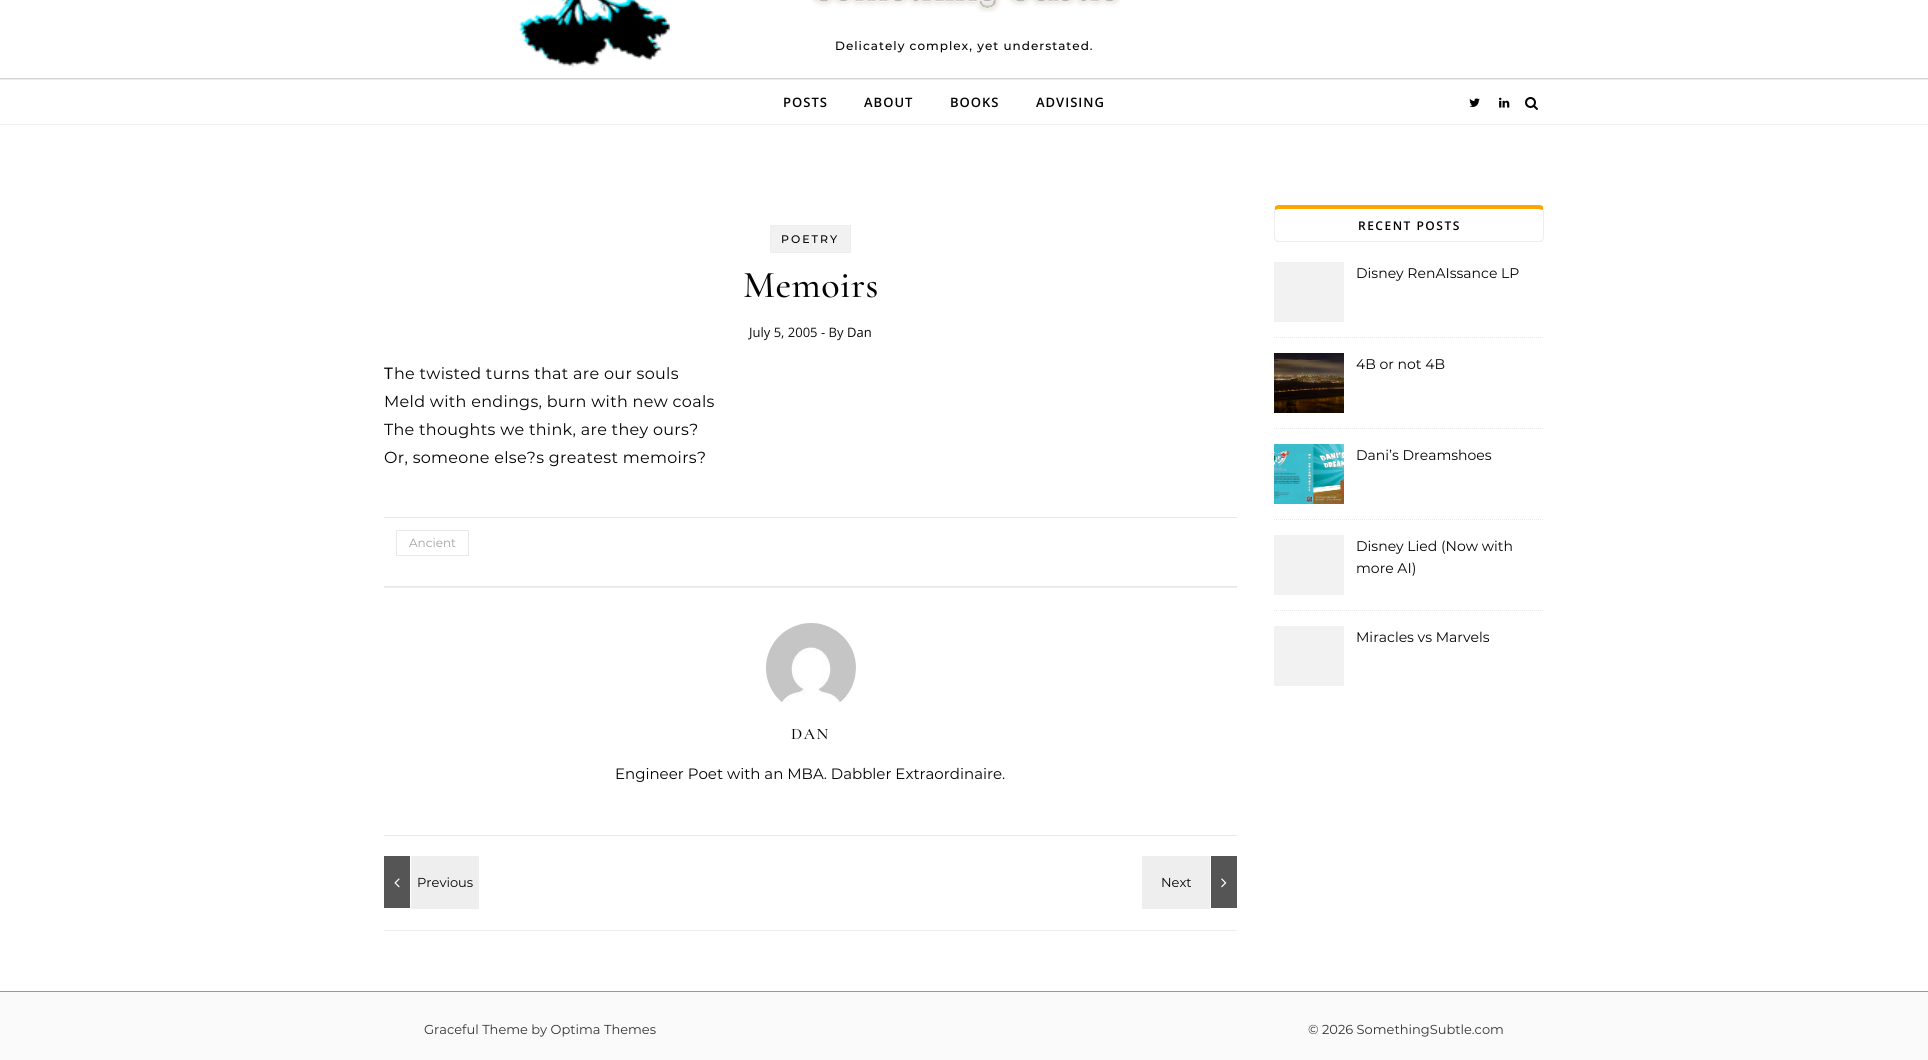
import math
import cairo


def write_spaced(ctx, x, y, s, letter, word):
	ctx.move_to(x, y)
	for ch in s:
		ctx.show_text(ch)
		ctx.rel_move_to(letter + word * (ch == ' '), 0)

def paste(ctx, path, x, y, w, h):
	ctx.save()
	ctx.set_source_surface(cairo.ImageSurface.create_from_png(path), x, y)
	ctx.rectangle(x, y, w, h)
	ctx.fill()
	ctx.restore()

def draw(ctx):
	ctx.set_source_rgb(1, 1, 1)
	ctx.paint()
	paste(ctx, 'media/1.png', 0, 0, 1928, 79)
	ctx.set_source_rgb(0.933, 0.933, 0.933)
	ctx.rectangle(0, 79, 1928, 1)
	ctx.fill()
	paste(ctx, 'media/2.png', 811, 0, 310, 13)
	ctx.select_font_face('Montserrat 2 Thin')
	ctx.set_font_size(12)
	ctx.set_source_rgb(0.012, 0.012, 0.012)
	write_spaced(ctx, 835, 50, 'Delicately complex, yet understated.', 1, 0)
	ctx.set_source_rgb(0.933, 0.933, 0.933)
	ctx.rectangle(0, 124, 1928, 1)
	ctx.fill()
	ctx.select_font_face('Open Sans SemiBold')
	ctx.set_font_size(13)
	ctx.set_source_rgb(0.012, 0.012, 0.012)
	for x, y, s in [
		(783, 107, 'POSTS'),
		(864, 107, 'ABOUT'),
		(950, 107, 'BOOKS'),
		(1036, 107, 'ADVISING'),
	]:
		write_spaced(ctx, x, y, s, 1, 0)
	paste(ctx, 'media/3.png', 1469, 98, 11, 9)
	paste(ctx, 'media/4.png', 1499, 97, 11, 11)
	paste(ctx, 'media/5.png', 1525, 97, 13, 13)
	ctx.set_source_rgb(0.933, 0.933, 0.933)
	ctx.rectangle(384, 587, 853, 1)
	ctx.fill()
	ctx.set_source_rgb(0.945, 0.945, 0.945)
	ctx.rectangle(770.5, 225.5, 80, 27)
	ctx.fill_preserve()
	ctx.set_source_rgb(0.933, 0.933, 0.933)
	ctx.set_line_width(1)
	ctx.stroke()
	ctx.select_font_face('Montserrat 2 Thin')
	ctx.set_font_size(11)
	ctx.set_source_rgb(0.012, 0.012, 0.012)
	write_spaced(ctx, 781, 243, 'POETRY', 2, 0)
	ctx.select_font_face('Cormorant Garamond Medium')
	ctx.set_font_size(38)
	write_spaced(ctx, 743, 297, 'Memoirs', 0.5, 0)
	ctx.select_font_face('Open Sans')
	ctx.set_font_size(13)
	ctx.set_source_rgb(0.067, 0.067, 0.067)
	ctx.move_to(749, 337)
	ctx.show_text('July 5, 2005')
	ctx.move_to(821, 337)
	ctx.show_text('- By')
	ctx.set_source_rgb(0.012, 0.012, 0.012)
	ctx.move_to(847, 337)
	ctx.show_text('Dan')
	ctx.select_font_face('Noto Sans')
	ctx.set_font_size(16)
	write_spaced(ctx, 384, 379, 'T', 0.3, 0)
	ctx.select_font_face('Montserrat Thin')
	for x, y, s in [
		(394, 379, 'he twisted turns that are our souls'),
		(384, 407, 'Meld with endings, burn with new coals'),
		(384, 435, 'The thoughts we think, are they ours?'),
		(384, 463, 'Or, someone else?s greatest memoirs?'),
	]:
		write_spaced(ctx, x, y, s, 0.3, 0)
	ctx.set_source_rgb(0.91, 0.91, 0.91)
	ctx.rectangle(384, 517, 853, 1)
	ctx.fill()
	ctx.rectangle(384, 586, 853, 1)
	ctx.fill()
	ctx.rectangle(396.5, 530.5, 72, 25)
	ctx.stroke()
	ctx.set_font_size(12)
	ctx.set_source_rgb(0.631, 0.631, 0.631)
	ctx.move_to(409, 547)
	ctx.show_text('Ancient')
	ctx.set_source_rgb(0.91, 0.91, 0.91)
	ctx.rectangle(384, 835, 853, 1)
	ctx.fill()
	paste(ctx, 'media/6.png', 766, 623, 90, 80)
	ctx.select_font_face('Cormorant Garamond Medium')
	ctx.set_font_size(16)
	ctx.set_source_rgb(0.012, 0.012, 0.012)
	write_spaced(ctx, 791, 739, 'DAN', 1.5, 0)
	ctx.select_font_face('Montserrat Thin')
	ctx.set_font_size(15)
	ctx.move_to(615, 779)
	ctx.show_text('Engineer Poet with an MBA. Dabbler Extraordinaire.')
	ctx.set_source_rgb(0.933, 0.933, 0.933)
	ctx.rectangle(384, 930, 853, 1)
	ctx.fill()
	ctx.set_source_rgb(0.333, 0.333, 0.333)
	ctx.rectangle(384, 856, 26, 52)
	ctx.fill()
	paste(ctx, 'media/7.png', 394, 878, 6, 10)
	ctx.set_source_rgb(0.933, 0.933, 0.933)
	ctx.rectangle(411, 856, 68, 53)
	ctx.fill()
	ctx.set_font_size(13)
	ctx.set_source_rgb(0.012, 0.012, 0.012)
	ctx.move_to(417, 887)
	ctx.show_text('Previous')
	ctx.set_source_rgb(0.933, 0.933, 0.933)
	ctx.rectangle(1142, 856, 68, 53)
	ctx.fill()
	ctx.set_source_rgb(0.012, 0.012, 0.012)
	ctx.move_to(1161, 887)
	ctx.show_text('Next')
	ctx.set_source_rgb(0.333, 0.333, 0.333)
	ctx.rectangle(1211, 856, 26, 52)
	ctx.fill()
	paste(ctx, 'media/8.png', 1221, 878, 6, 10)
	ctx.set_source_rgb(1, 0.647, 0)
	ctx.new_path()
	ctx.move_to(1279, 205)
	ctx.curve_to(1277, 205, 1275, 206, 1275, 207)
	ctx.line_to(1275, 210)
	ctx.line_to(1278, 209)
	ctx.line_to(1496, 209)
	ctx.line_to(1539, 209)
	ctx.line_to(1543, 210)
	ctx.line_to(1543, 207)
	ctx.curve_to(1543, 206, 1541, 205, 1539, 205)
	ctx.close_path()
	ctx.fill()
	ctx.set_source_rgb(0.933, 0.933, 0.933)
	ctx.new_path()
	ctx.move_to(1544, 237)
	ctx.line_to(1544, 210)
	ctx.curve_to(1544, 209, 1544, 208, 1543.5, 207.5)
	ctx.line_to(1543, 209.5)
	ctx.line_to(1543, 237.5)
	ctx.line_to(1542, 240)
	ctx.line_to(1542.5, 240.5)
	ctx.curve_to(1543.5, 240, 1544, 238.5, 1544, 237)
	ctx.close_path()
	ctx.fill()
	ctx.new_path()
	ctx.move_to(1279, 242)
	ctx.line_to(1539, 242)
	ctx.curve_to(1540, 242, 1542, 242, 1543, 241)
	ctx.line_to(1542, 240)
	ctx.curve_to(1541, 240, 1540, 241, 1539, 241)
	ctx.line_to(1279, 241)
	ctx.curve_to(1278, 241, 1277, 240, 1276, 240)
	ctx.line_to(1275, 241)
	ctx.curve_to(1276, 242, 1278, 242, 1279, 242)
	ctx.close_path()
	ctx.fill()
	ctx.new_path()
	ctx.move_to(1274, 210)
	ctx.line_to(1274, 237)
	ctx.curve_to(1274, 238.5, 1274.5, 240, 1275.5, 240.5)
	ctx.line_to(1276, 240)
	ctx.line_to(1275, 237.5)
	ctx.line_to(1275, 209.5)
	ctx.line_to(1274.5, 207.5)
	ctx.close_path()
	ctx.fill()
	ctx.select_font_face('Open Sans SemiBold')
	ctx.set_font_size(12)
	ctx.set_source_rgb(0.012, 0.012, 0.012)
	write_spaced(ctx, 1358, 230, 'RECENT POSTS', 1.5, 0)
	ctx.new_path()
	ctx.move_to(1274, 337.5)
	ctx.line_to(1544, 337.5)
	ctx.set_source_rgb(0.91, 0.91, 0.91)
	ctx.set_dash([1, 1])
	ctx.stroke()
	ctx.set_source_rgb(0.949, 0.949, 0.949)
	ctx.rectangle(1274, 262, 70, 60)
	ctx.fill()
	ctx.select_font_face('Montserrat Thin')
	ctx.set_font_size(14)
	ctx.set_source_rgb(0.012, 0.012, 0.012)
	ctx.move_to(1356, 278)
	ctx.show_text('Disney RenAIssance LP')
	ctx.new_path()
	ctx.move_to(1274, 428.5)
	ctx.line_to(1544, 428.5)
	ctx.set_source_rgb(0.91, 0.91, 0.91)
	ctx.stroke()
	paste(ctx, 'media/9.png', 1274, 353, 70, 60)
	ctx.set_source_rgb(0.012, 0.012, 0.012)
	ctx.move_to(1356, 369)
	ctx.show_text('4B or not 4B')
	ctx.new_path()
	ctx.move_to(1274, 519.5)
	ctx.line_to(1544, 519.5)
	ctx.set_source_rgb(0.91, 0.91, 0.91)
	ctx.stroke()
	paste(ctx, 'media/10.png', 1274, 444, 70, 60)
	ctx.set_source_rgb(0.012, 0.012, 0.012)
	ctx.move_to(1356, 460)
	ctx.show_text('Dani’s Dreamshoes')
	ctx.new_path()
	ctx.move_to(1274, 610.5)
	ctx.line_to(1544, 610.5)
	ctx.set_source_rgb(0.91, 0.91, 0.91)
	ctx.stroke()
	ctx.set_source_rgb(0.949, 0.949, 0.949)
	ctx.rectangle(1274, 535, 70, 60)
	ctx.fill()
	ctx.set_source_rgb(0.012, 0.012, 0.012)
	ctx.move_to(1356, 551)
	ctx.show_text('Disney Lied (Now with')
	ctx.move_to(1356, 573)
	ctx.show_text('more AI)')
	ctx.set_source_rgb(0.949, 0.949, 0.949)
	ctx.rectangle(1274, 626, 70, 60)
	ctx.fill()
	ctx.set_source_rgb(0.012, 0.012, 0.012)
	ctx.move_to(1356, 642)
	ctx.show_text('Miracles vs Marvels')
	ctx.set_source_rgb(0.98, 0.98, 0.98)
	ctx.rectangle(0, 992, 1928, 68)
	ctx.fill()
	ctx.set_source_rgb(0.6, 0.6, 0.6)
	ctx.rectangle(0, 991, 1928, 1)
	ctx.fill()
	ctx.set_font_size(13)
	ctx.set_source_rgb(0.2, 0.2, 0.2)
	ctx.move_to(424, 1034)
	ctx.show_text('Graceful Theme by Optima Themes')
	ctx.move_to(1308, 1034)
	ctx.show_text('© 2026 SomethingSubtle.com')


surface = cairo.ImageSurface(cairo.FORMAT_RGB24, 1928, 1060)
ctx = cairo.Context(surface)
options = cairo.FontOptions()
options.set_hint_metrics(cairo.HINT_METRICS_OFF)
options.set_hint_style(cairo.HINT_STYLE_NONE)
ctx.set_font_options(options)
ctx.set_miter_limit(4)
draw(ctx)
surface.write_to_png('image.png')
